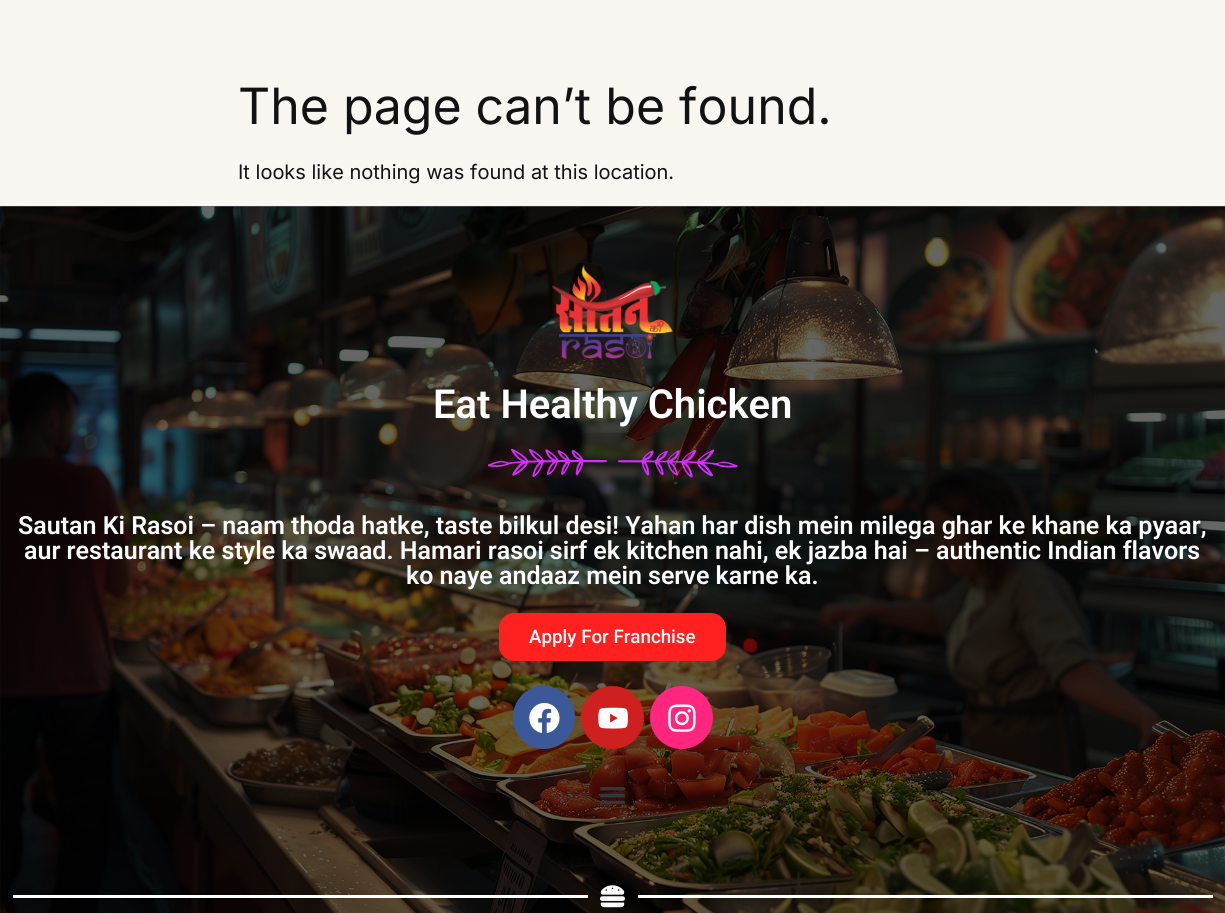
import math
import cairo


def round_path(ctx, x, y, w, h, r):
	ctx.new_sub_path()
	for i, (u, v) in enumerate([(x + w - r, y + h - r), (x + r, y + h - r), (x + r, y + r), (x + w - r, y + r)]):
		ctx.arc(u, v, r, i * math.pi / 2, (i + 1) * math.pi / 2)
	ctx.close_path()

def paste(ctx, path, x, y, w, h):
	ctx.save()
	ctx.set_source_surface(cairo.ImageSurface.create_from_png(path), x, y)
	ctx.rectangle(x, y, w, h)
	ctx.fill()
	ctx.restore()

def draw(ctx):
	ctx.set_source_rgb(0.98, 0.965, 0.953)
	ctx.paint()
	ctx.set_source_rgb(0.392, 0.384, 0.38)
	ctx.rectangle(0, 206, 1225, 1)
	ctx.fill()
	ctx.select_font_face('Inter')
	ctx.set_font_size(50)
	ctx.set_source_rgb(0.078, 0.071, 0.078)
	ctx.move_to(238, 124)
	ctx.show_text('The page can’t be found.')
	ctx.set_font_size(20)
	ctx.move_to(238, 179)
	ctx.show_text('It looks like nothing was found at this location.')
	paste(ctx, 'media/1.png', 0, 206, 1225, 707)
	paste(ctx, 'media/2.png', 552, 265, 121, 94)
	ctx.select_font_face('Roboto SemiBold')
	ctx.set_font_size(40)
	ctx.set_source_rgb(1, 1, 1)
	ctx.move_to(433, 418)
	ctx.show_text('Eat Healthy Chicken')
	paste(ctx, 'media/3.png', 488, 449, 250, 29)
	ctx.set_font_size(25)
	for x, y, s in [
		(18, 534, 'Sautan Ki Rasoi – naam thoda hatke, taste bilkul desi! Yahan har dish mein milega ghar ke khane ka pyaar,'),
		(24, 559, 'aur restaurant ke style ka swaad. Hamari rasoi sirf ek kitchen nahi, ek jazba hai – authentic Indian flavors'),
		(406, 584, 'ko naye andaaz mein serve karne ka.'),
	]:
		ctx.move_to(x, y)
		ctx.show_text(s)
	ctx.set_source_rgb(1, 0.125, 0.125)
	round_path(ctx, 499, 613, 227, 48, 15)
	ctx.fill()
	ctx.select_font_face('Roboto Medium')
	ctx.set_font_size(18.75)
	ctx.set_source_rgb(1, 1, 1)
	ctx.move_to(529, 643)
	ctx.show_text('Apply For Franchise')
	ctx.set_source_rgb(0.231, 0.349, 0.596)
	round_path(ctx, 513, 686, 62, 63, 31)
	ctx.fill()
	paste(ctx, 'media/4.png', 529, 703, 31, 30)
	ctx.set_source_rgb(0.804, 0.125, 0.122)
	ctx.arc(612.5, 717.5, 31.5, 0, 2 * math.pi)
	ctx.fill()
	paste(ctx, 'media/5.png', 598, 707, 30, 22)
	ctx.set_source_rgb(1, 0.149, 0.498)
	ctx.arc(681.5, 717.5, 31.5, 0, 2 * math.pi)
	ctx.fill()
	paste(ctx, 'media/6.png', 668, 704, 28, 28)
	ctx.set_source_rgba(0, 0, 0, 0.05)
	ctx.rectangle(591, 774, 42, 41)
	ctx.fill()
	paste(ctx, 'media/7.png', 600, 787, 25, 18)
	ctx.set_source_rgb(1, 1, 1)
	ctx.rectangle(13, 895, 575, 3)
	ctx.fill()
	paste(ctx, 'media/8.png', 600, 885, 25, 23)
	ctx.rectangle(638, 895, 575, 3)
	ctx.fill()


surface = cairo.ImageSurface(cairo.FORMAT_RGB24, 1225, 913)
ctx = cairo.Context(surface)
options = cairo.FontOptions()
options.set_hint_metrics(cairo.HINT_METRICS_OFF)
options.set_hint_style(cairo.HINT_STYLE_NONE)
ctx.set_font_options(options)
ctx.set_miter_limit(4)
draw(ctx)
surface.write_to_png('image.png')
